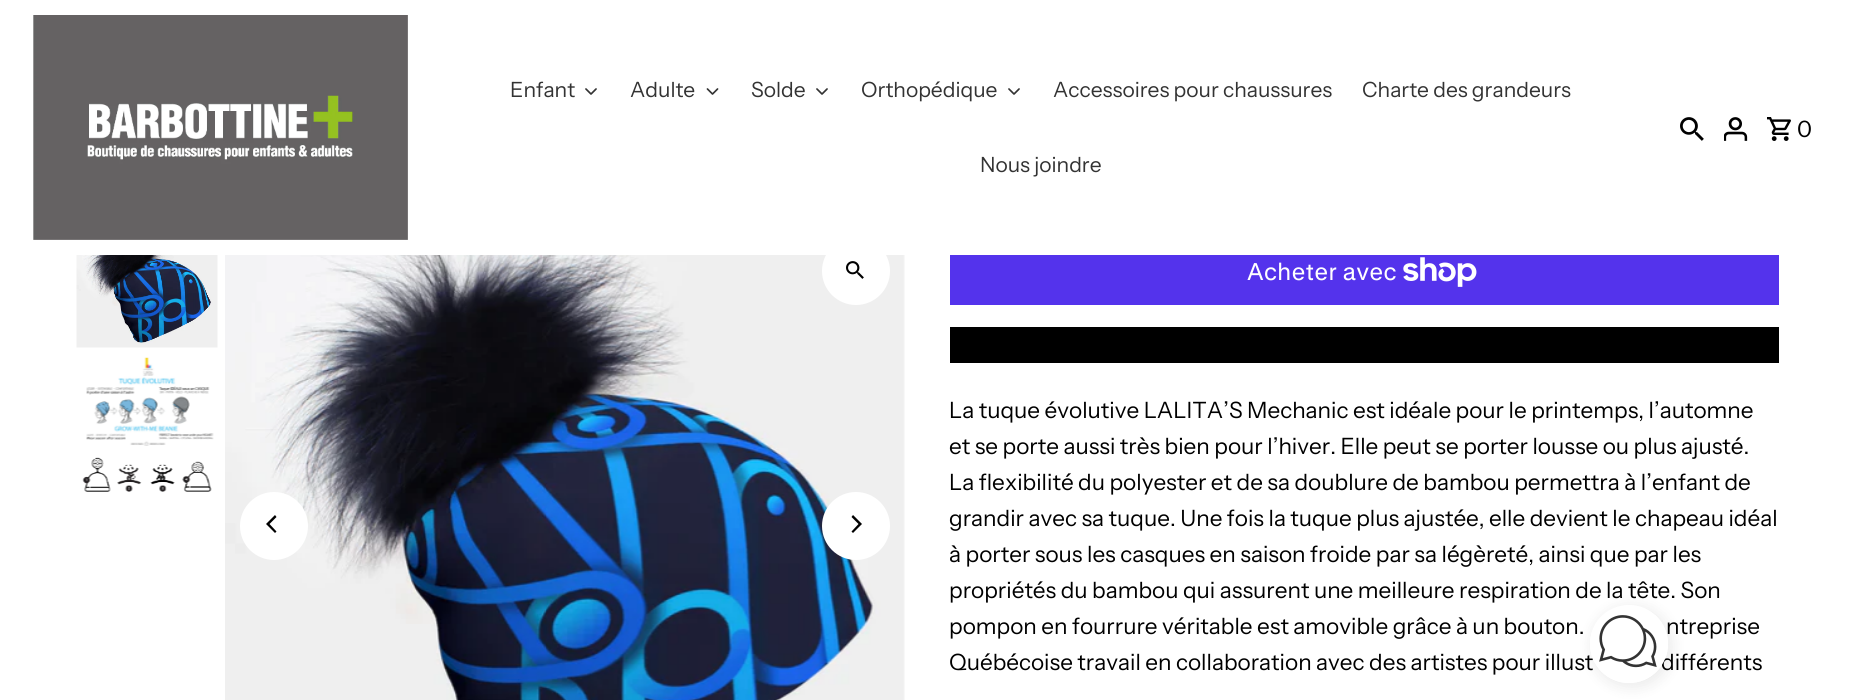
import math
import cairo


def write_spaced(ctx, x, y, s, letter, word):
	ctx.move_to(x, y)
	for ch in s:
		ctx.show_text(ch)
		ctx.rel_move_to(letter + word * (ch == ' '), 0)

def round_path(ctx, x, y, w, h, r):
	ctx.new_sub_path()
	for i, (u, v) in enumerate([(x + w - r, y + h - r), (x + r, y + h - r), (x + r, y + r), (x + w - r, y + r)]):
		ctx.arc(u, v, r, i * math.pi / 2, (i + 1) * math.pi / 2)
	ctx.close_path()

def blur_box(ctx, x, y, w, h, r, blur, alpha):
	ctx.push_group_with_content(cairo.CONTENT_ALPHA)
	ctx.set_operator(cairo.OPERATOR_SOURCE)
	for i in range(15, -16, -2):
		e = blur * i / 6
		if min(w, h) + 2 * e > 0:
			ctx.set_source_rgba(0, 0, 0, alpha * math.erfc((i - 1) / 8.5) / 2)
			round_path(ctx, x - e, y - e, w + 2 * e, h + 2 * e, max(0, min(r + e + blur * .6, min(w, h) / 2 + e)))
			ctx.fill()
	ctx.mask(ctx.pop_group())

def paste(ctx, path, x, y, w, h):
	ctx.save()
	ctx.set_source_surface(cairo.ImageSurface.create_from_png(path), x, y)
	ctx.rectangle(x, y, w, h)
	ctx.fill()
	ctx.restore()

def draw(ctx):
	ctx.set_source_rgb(1, 1, 1)
	ctx.paint()
	paste(ctx, 'media/1.png', 33, 15, 375, 225)
	ctx.select_font_face('Instrument Sans')
	ctx.set_font_size(21)
	ctx.set_source_rgb(0.2, 0.2, 0.2)
	ctx.move_to(510, 97)
	ctx.show_text('Enfant')
	paste(ctx, 'media/2.png', 585, 88, 12, 7)
	ctx.move_to(630, 97)
	ctx.show_text('Adulte')
	paste(ctx, 'media/3.png', 706, 88, 13, 7)
	ctx.move_to(751, 97)
	ctx.show_text('Solde')
	paste(ctx, 'media/2.png', 816, 88, 12, 7)
	ctx.move_to(861, 97)
	ctx.show_text('Orthopédique')
	paste(ctx, 'media/2.png', 1008, 88, 12, 7)
	for x, y, s in [
		(1053, 97, 'Accessoires pour chaussures'),
		(1362, 97, 'Charte des grandeurs'),
		(980, 172, 'Nous joindre'),
	]:
		ctx.move_to(x, y)
		ctx.show_text(s)
	paste(ctx, 'media/4.png', 1680, 117, 24, 24)
	paste(ctx, 'media/5.png', 1724, 117, 24, 24)
	paste(ctx, 'media/6.png', 1767, 117, 24, 24)
	ctx.set_font_size(22.5)
	ctx.set_source_rgb(0, 0, 0)
	write_spaced(ctx, 1797, 137, '0', 2, 0)
	paste(ctx, 'media/7.png', 76, 255, 142, 93)
	paste(ctx, 'media/8.png', 86, 357, 128, 89)
	paste(ctx, 'media/9.png', 82, 457, 130, 35)
	paste(ctx, 'media/11.png', 225, 255, 680, 445)
	ctx.set_source_rgb(1, 1, 1)
	ctx.arc(856, 271, 34, 0, 2 * math.pi)
	ctx.fill()
	paste(ctx, 'media/10.png', 846, 261, 18, 18)
	ctx.arc(274, 526, 34, 0, 2 * math.pi)
	ctx.fill()
	ctx.set_source_rgb(0, 0, 0)
	ctx.new_path()
	ctx.move_to(266, 524)
	ctx.line_to(275, 533)
	ctx.line_to(276.5, 531.5)
	ctx.line_to(269.5, 524)
	ctx.line_to(276.5, 517)
	ctx.line_to(275, 515)
	ctx.close_path()
	ctx.fill()
	ctx.set_source_rgb(1, 1, 1)
	ctx.arc(856, 526, 34, 0, 2 * math.pi)
	ctx.fill()
	ctx.set_source_rgb(0, 0, 0)
	ctx.new_path()
	ctx.move_to(862, 524)
	ctx.line_to(853, 515)
	ctx.line_to(851.5, 517)
	ctx.line_to(858.5, 524)
	ctx.line_to(851.5, 531.5)
	ctx.line_to(853, 533)
	ctx.close_path()
	ctx.fill()
	ctx.set_source_rgb(0.329, 0.2, 0.922)
	ctx.rectangle(950, 255, 829, 50)
	ctx.fill()
	ctx.select_font_face('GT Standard')
	ctx.set_font_size(24)
	ctx.set_source_rgb(1, 1, 1)
	ctx.move_to(1247, 280)
	ctx.show_text('Acheter avec')
	paste(ctx, 'media/12.png', 1403, 257, 74, 30)
	ctx.set_source_rgb(0, 0, 0)
	ctx.rectangle(950, 327, 829, 36)
	ctx.fill()
	ctx.select_font_face('Instrument Sans')
	ctx.set_font_size(22.5)
	for x, y, s in [
		(949, 418, 'La tuque évolutive LALITA’S Mechanic est idéale pour le printemps, l’automne'),
		(949, 454, 'et se porte aussi très bien pour l’hiver. Elle peut se porter lousse ou plus ajusté.'),
		(949, 490, 'La flexibilité du polyester et de sa doublure de bambou permettra à l’enfant de'),
		(949, 526, 'grandir avec sa tuque. Une fois la tuque plus ajustée, elle devient le chapeau idéal'),
		(949, 562, 'à porter sous les casques en saison froide par sa légèreté, ainsi que par les'),
		(949, 598, 'propriétés du bambou qui assurent une meilleure respiration de la tête. Son'),
		(949, 634, 'pompon en fourrure véritable est amovible grâce à un bouton.'),
		(1666, 634, 'ntreprise'),
		(949, 670, 'Québécoise travail en collaboration avec des artistes pour illust'),
		(1661, 670, 'différents'),
	]:
		ctx.move_to(x, y)
		ctx.show_text(s)
	ctx.save()
	ctx.set_fill_rule(cairo.FILL_RULE_EVEN_ODD)
	ctx.new_path()
	ctx.move_to(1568, 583)
	ctx.line_to(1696, 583)
	ctx.line_to(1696, 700)
	ctx.line_to(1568, 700)
	ctx.close_path()
	ctx.move_to(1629, 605)
	ctx.curve_to(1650.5, 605, 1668, 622.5, 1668, 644)
	ctx.curve_to(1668, 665.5, 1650.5, 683, 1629, 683)
	ctx.curve_to(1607.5, 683, 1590, 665.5, 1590, 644)
	ctx.curve_to(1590, 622.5, 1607.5, 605, 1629, 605)
	ctx.close_path()
	ctx.clip()
	ctx.set_source_rgb(0, 0, 0)
	blur_box(ctx, 1590, 605, 84, 84, 42, 7, 0.07)
	ctx.restore()
	paste(ctx, 'media/13.png', 1590, 615, 78, 68)


surface = cairo.ImageSurface(cairo.FORMAT_RGB24, 1853, 700)
ctx = cairo.Context(surface)
options = cairo.FontOptions()
options.set_hint_metrics(cairo.HINT_METRICS_OFF)
options.set_hint_style(cairo.HINT_STYLE_NONE)
ctx.set_font_options(options)
ctx.set_miter_limit(4)
draw(ctx)
surface.write_to_png('image.png')
